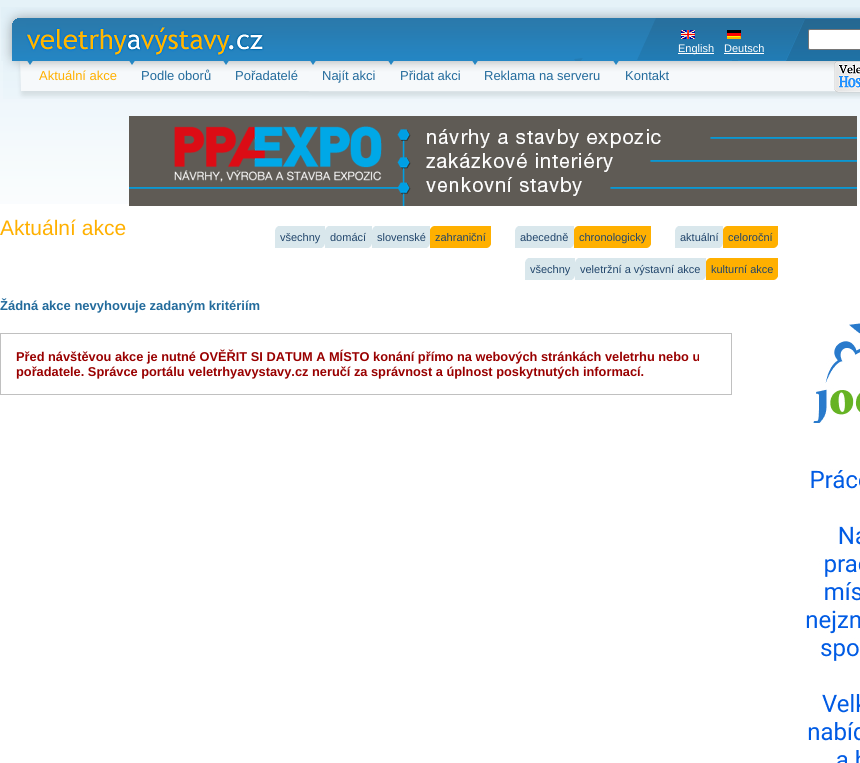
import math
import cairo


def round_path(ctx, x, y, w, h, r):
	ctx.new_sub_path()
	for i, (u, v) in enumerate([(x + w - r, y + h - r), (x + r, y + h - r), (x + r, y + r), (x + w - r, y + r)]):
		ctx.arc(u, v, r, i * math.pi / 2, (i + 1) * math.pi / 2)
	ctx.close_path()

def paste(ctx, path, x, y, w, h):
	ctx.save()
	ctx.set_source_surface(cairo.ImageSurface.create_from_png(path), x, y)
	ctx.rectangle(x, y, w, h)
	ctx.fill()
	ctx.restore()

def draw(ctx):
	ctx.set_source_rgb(1, 1, 1)
	ctx.paint()
	paste(ctx, 'media/1.png', 0, 0, 860, 204)
	paste(ctx, 'media/2.png', 1, 7, 859, 54)
	paste(ctx, 'media/3.png', 153, 26, 111, 30)
	paste(ctx, 'media/4.png', 26, 22, 127, 39)
	paste(ctx, 'media/5.png', 681, 30, 14, 9)
	ctx.set_source_rgb(1, 1, 1)
	ctx.rectangle(678, 53, 36, 1)
	ctx.fill()
	ctx.select_font_face('Liberation Sans')
	ctx.set_font_size(11)
	ctx.move_to(678, 52)
	ctx.show_text('English')
	paste(ctx, 'media/6.png', 727, 30, 14, 9)
	ctx.move_to(724, 52)
	ctx.show_text('Deutsch')
	ctx.rectangle(724, 53, 40, 1)
	ctx.fill()
	round_path(ctx, 808.5, 29.5, 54, 20, 1.5)
	ctx.fill_preserve()
	ctx.set_source_rgb(0.463, 0.463, 0.463)
	ctx.set_line_width(1)
	ctx.stroke()
	paste(ctx, 'media/7.png', 3, 61, 857, 38)
	paste(ctx, 'media/8.png', 27, 61, 6, 4)
	ctx.set_font_size(13)
	ctx.set_source_rgb(1, 0.69, 0)
	ctx.move_to(39, 80)
	ctx.show_text('Aktuální akce')
	paste(ctx, 'media/8.png', 129, 61, 6, 4)
	ctx.set_source_rgb(0.137, 0.42, 0.612)
	ctx.move_to(141, 80)
	ctx.show_text('Podle oborů')
	paste(ctx, 'media/8.png', 223, 61, 6, 4)
	ctx.move_to(235, 80)
	ctx.show_text('Pořadatelé')
	paste(ctx, 'media/8.png', 310, 61, 6, 4)
	ctx.move_to(322, 80)
	ctx.show_text('Najít akci')
	paste(ctx, 'media/8.png', 388, 61, 6, 4)
	ctx.move_to(400, 80)
	ctx.show_text('Přidat akci')
	paste(ctx, 'media/8.png', 472, 61, 6, 4)
	ctx.move_to(484, 80)
	ctx.show_text('Reklama na serveru')
	paste(ctx, 'media/8.png', 613, 61, 6, 4)
	ctx.move_to(625, 80)
	ctx.show_text('Kontakt')
	paste(ctx, 'media/9.png', 834, 61, 26, 32)
	paste(ctx, 'media/10.png', 129, 116, 728, 90)
	ctx.set_font_size(21)
	ctx.set_source_rgb(1, 0.69, 0)
	ctx.move_to(0, 235)
	ctx.show_text('Aktuální akce')
	ctx.select_font_face('Liberation Sans', cairo.FONT_SLANT_NORMAL, cairo.FONT_WEIGHT_BOLD)
	ctx.set_font_size(13)
	ctx.set_source_rgb(0.137, 0.42, 0.612)
	ctx.move_to(0, 310)
	ctx.show_text('Žádná akce nevyhovuje zadaným kritériím')
	ctx.rectangle(0.5, 333.5, 731, 61)
	ctx.set_source_rgb(0.753, 0.753, 0.753)
	ctx.stroke()
	ctx.set_font_size(12.8)
	ctx.set_source_rgb(0.6, 0, 0)
	ctx.move_to(16, 361)
	ctx.show_text('Před návštěvou akce je nutné OVĚŘIT SI DATUM A MÍSTO konání přímo na webových stránkách veletrhu nebo u')
	ctx.move_to(16, 376)
	ctx.show_text('pořadatele. Správce portálu veletrhyavystavy.cz neručí za správnost a úplnost poskytnutých informací.')
	ctx.set_source_rgb(0.851, 0.906, 0.925)
	ctx.rectangle(275, 226, 155, 22)
	ctx.fill()
	paste(ctx, 'media/11.png', 275, 226, 3, 4)
	ctx.select_font_face('Liberation Sans')
	ctx.set_font_size(11)
	ctx.set_source_rgb(0.129, 0.271, 0.42)
	ctx.move_to(280, 241)
	ctx.show_text('všechny')
	paste(ctx, 'media/12.png', 322, 244, 3, 4)
	paste(ctx, 'media/11.png', 325, 226, 3, 4)
	ctx.move_to(330, 241)
	ctx.show_text('domácí')
	paste(ctx, 'media/12.png', 369, 244, 3, 4)
	paste(ctx, 'media/11.png', 372, 226, 3, 4)
	ctx.move_to(377, 241)
	ctx.show_text('slovenské')
	paste(ctx, 'media/12.png', 427, 244, 3, 4)
	ctx.set_source_rgb(1, 0.69, 0)
	ctx.rectangle(430, 226, 61, 22)
	ctx.fill()
	paste(ctx, 'media/13.png', 430, 226, 4, 4)
	ctx.set_source_rgb(0.129, 0.271, 0.42)
	ctx.move_to(435, 241)
	ctx.show_text('zahraniční')
	paste(ctx, 'media/14.png', 487, 244, 4, 4)
	ctx.set_source_rgb(0.851, 0.906, 0.925)
	ctx.rectangle(515, 226, 59, 22)
	ctx.fill()
	paste(ctx, 'media/11.png', 515, 226, 3, 4)
	ctx.set_source_rgb(0.129, 0.271, 0.42)
	ctx.move_to(520, 241)
	ctx.show_text('abecedně')
	paste(ctx, 'media/12.png', 571, 244, 3, 4)
	ctx.set_source_rgb(1, 0.69, 0)
	ctx.rectangle(574, 226, 77, 22)
	ctx.fill()
	paste(ctx, 'media/13.png', 574, 226, 4, 4)
	ctx.set_source_rgb(0.129, 0.271, 0.42)
	ctx.move_to(579, 241)
	ctx.show_text('chronologicky')
	paste(ctx, 'media/14.png', 647, 244, 4, 4)
	ctx.set_source_rgb(0.851, 0.906, 0.925)
	ctx.rectangle(675, 226, 48, 22)
	ctx.fill()
	paste(ctx, 'media/11.png', 675, 226, 3, 4)
	ctx.set_source_rgb(0.129, 0.271, 0.42)
	ctx.move_to(680, 241)
	ctx.show_text('aktuální')
	paste(ctx, 'media/12.png', 720, 244, 3, 4)
	ctx.set_source_rgb(1, 0.69, 0)
	ctx.rectangle(723, 226, 55, 22)
	ctx.fill()
	paste(ctx, 'media/13.png', 723, 226, 4, 4)
	ctx.set_source_rgb(0.129, 0.271, 0.42)
	ctx.move_to(728, 241)
	ctx.show_text('celoroční')
	paste(ctx, 'media/14.png', 774, 244, 4, 4)
	ctx.set_source_rgb(0.851, 0.906, 0.925)
	ctx.rectangle(525, 258, 181, 22)
	ctx.fill()
	paste(ctx, 'media/11.png', 525, 258, 3, 4)
	ctx.set_source_rgb(0.129, 0.271, 0.42)
	ctx.move_to(530, 273)
	ctx.show_text('všechny')
	paste(ctx, 'media/12.png', 572, 276, 3, 4)
	paste(ctx, 'media/11.png', 575, 258, 3, 4)
	ctx.move_to(580, 273)
	ctx.show_text('veletržní a výstavní akce')
	paste(ctx, 'media/12.png', 703, 276, 3, 4)
	ctx.set_source_rgb(1, 0.69, 0)
	ctx.rectangle(706, 258, 72, 22)
	ctx.fill()
	paste(ctx, 'media/13.png', 706, 258, 4, 4)
	ctx.set_source_rgb(0.129, 0.271, 0.42)
	ctx.move_to(711, 273)
	ctx.show_text('kulturní akce')
	paste(ctx, 'media/14.png', 774, 276, 4, 4)
	paste(ctx, 'media/15.png', 806, 323, 54, 440)


surface = cairo.ImageSurface(cairo.FORMAT_RGB24, 860, 763)
ctx = cairo.Context(surface)
options = cairo.FontOptions()
options.set_hint_metrics(cairo.HINT_METRICS_OFF)
options.set_hint_style(cairo.HINT_STYLE_NONE)
ctx.set_font_options(options)
ctx.set_miter_limit(4)
draw(ctx)
surface.write_to_png('image.png')
